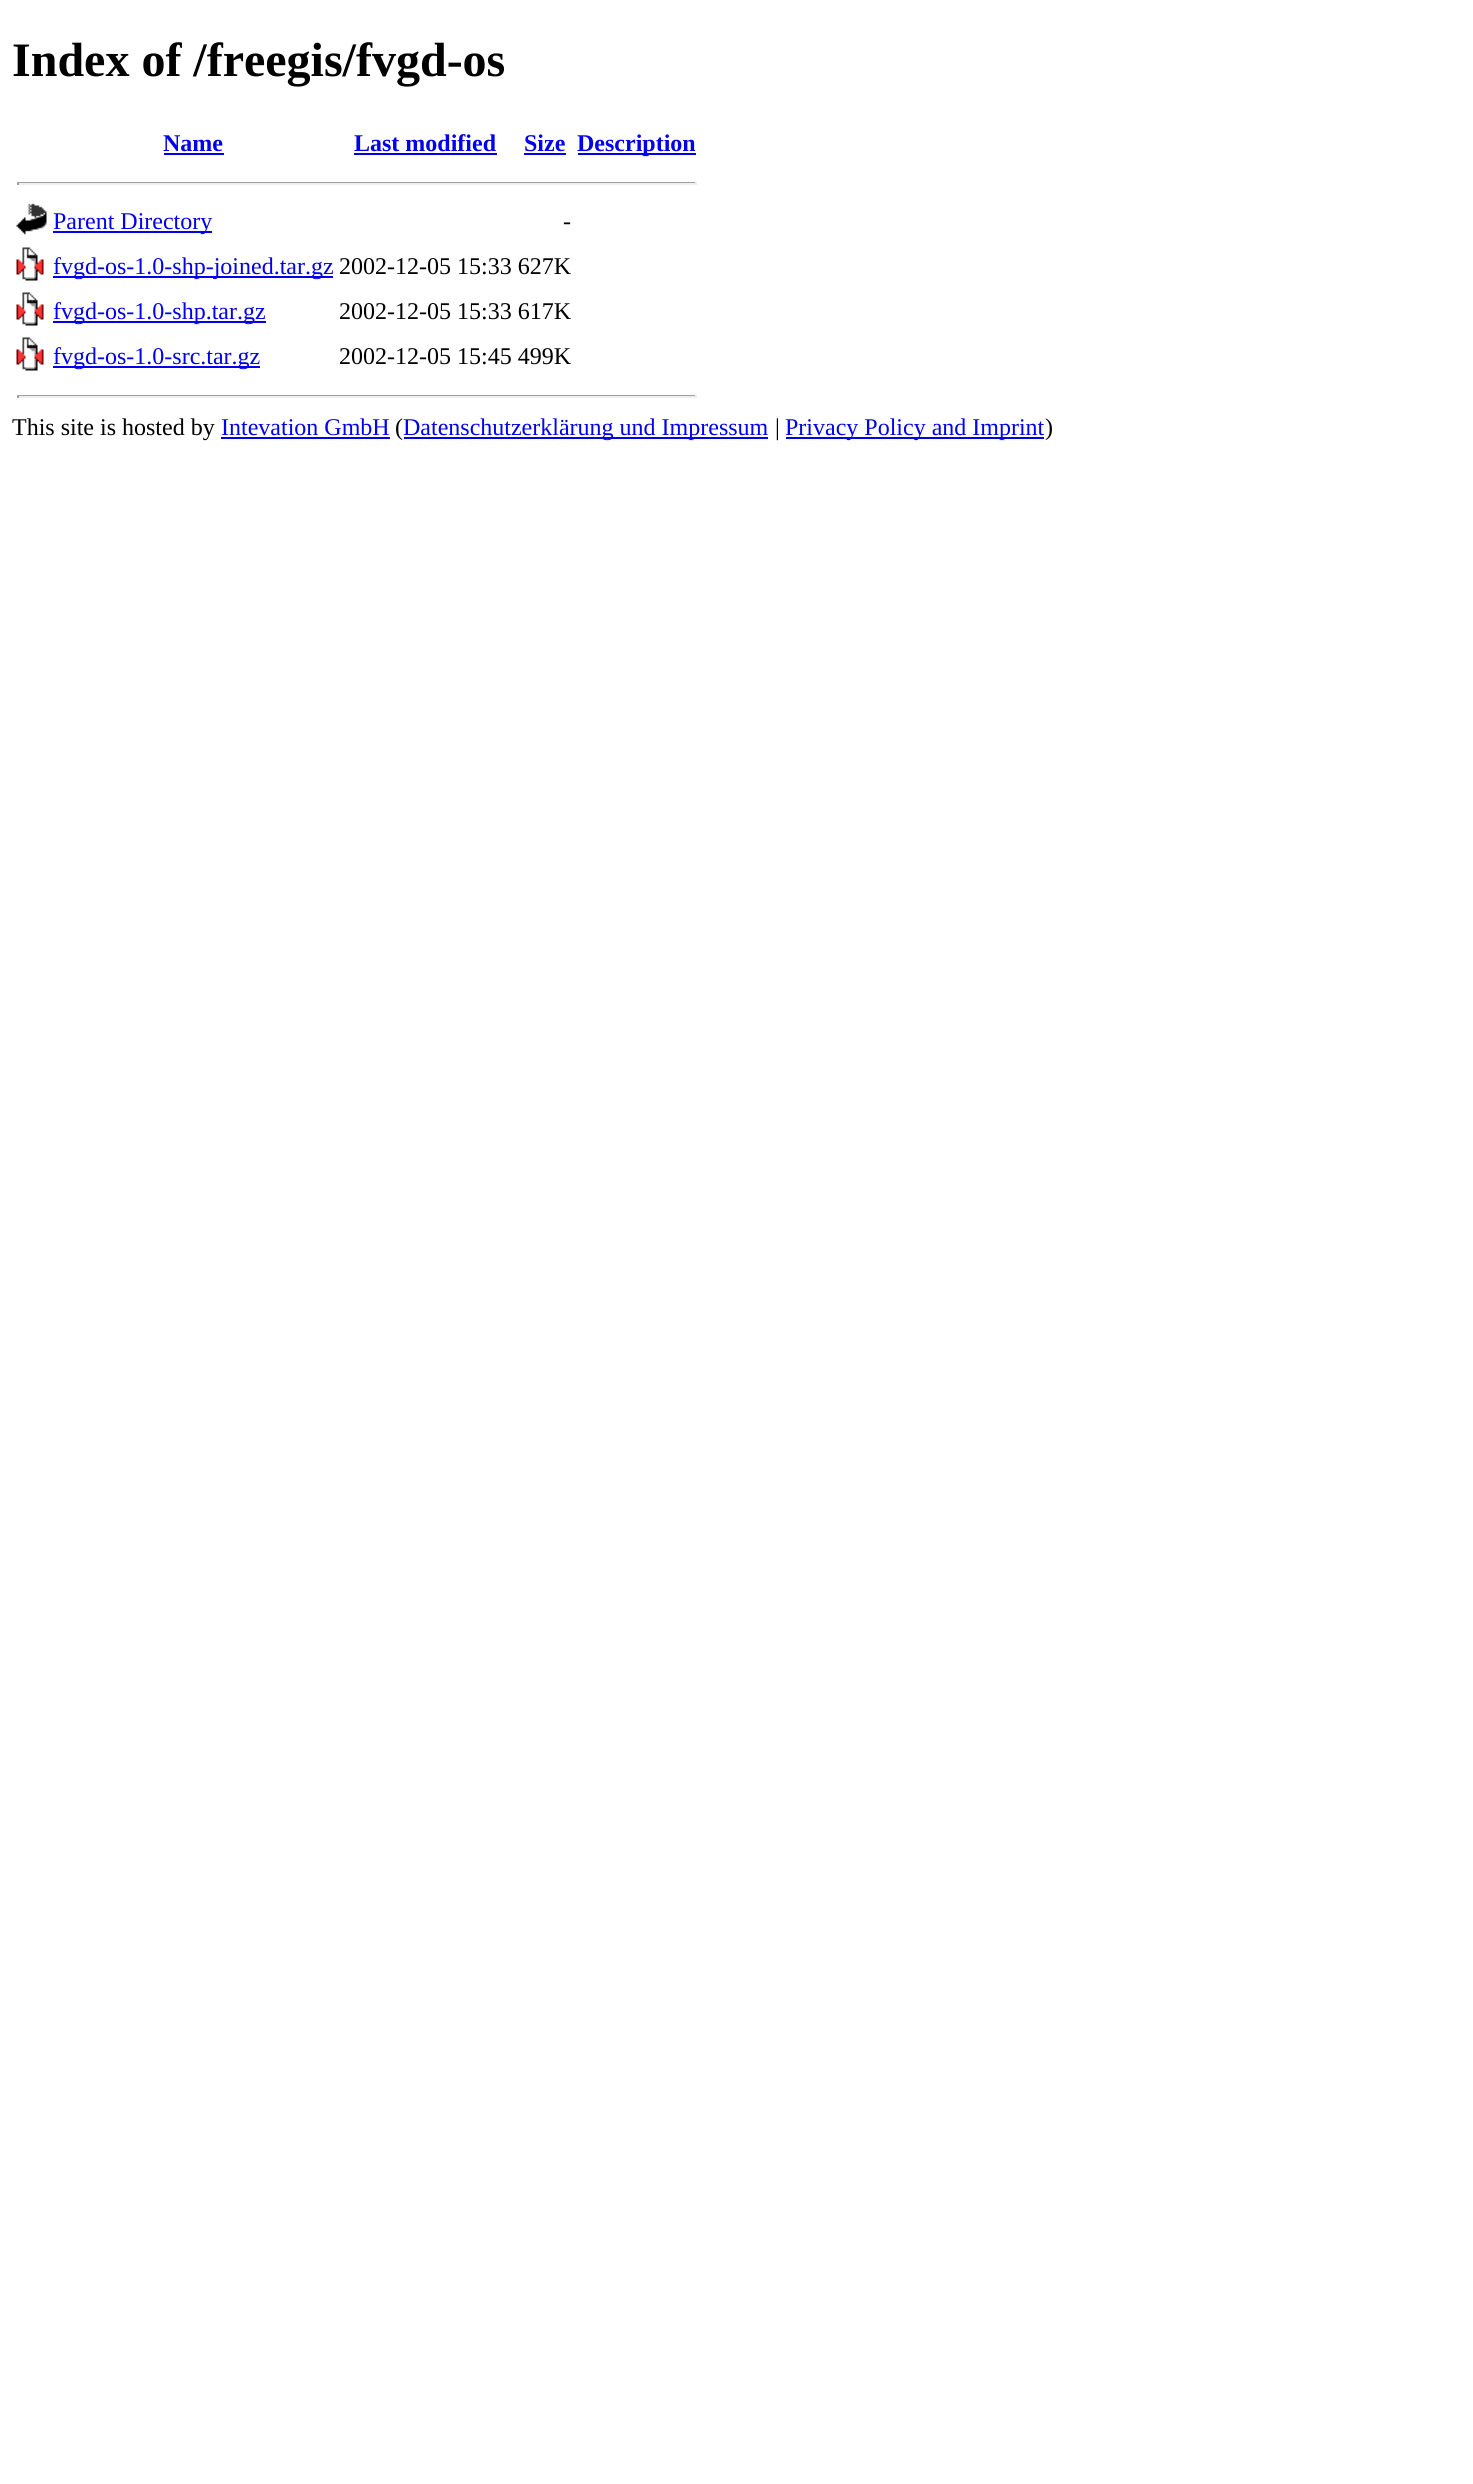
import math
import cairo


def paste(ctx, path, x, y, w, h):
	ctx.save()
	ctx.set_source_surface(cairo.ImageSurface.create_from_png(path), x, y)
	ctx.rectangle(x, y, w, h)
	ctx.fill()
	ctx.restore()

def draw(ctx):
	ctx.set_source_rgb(1, 1, 1)
	ctx.paint()
	ctx.select_font_face('Liberation Serif', cairo.FONT_SLANT_NORMAL, cairo.FONT_WEIGHT_BOLD)
	ctx.set_font_size(48)
	ctx.set_source_rgb(0, 0, 0)
	ctx.move_to(12, 76)
	ctx.show_text('Index of /freegis/fvgd-os')
	ctx.set_font_size(24)
	ctx.set_source_rgb(0, 0, 0.933)
	ctx.move_to(163, 151)
	ctx.show_text('Name')
	ctx.rectangle(164, 153, 60, 2)
	ctx.fill()
	ctx.move_to(354, 151)
	ctx.show_text('Last modified')
	ctx.rectangle(354, 153, 143, 2)
	ctx.fill()
	ctx.move_to(524, 151)
	ctx.show_text('Size')
	ctx.rectangle(524, 153, 42, 2)
	ctx.fill()
	ctx.rectangle(578, 153, 118, 2)
	ctx.fill()
	ctx.move_to(577, 151)
	ctx.show_text('Description')
	ctx.set_source_rgb(0.624, 0.624, 0.624)
	ctx.rectangle(17, 182, 679, 1)
	ctx.fill()
	ctx.set_source_rgb(0.933, 0.933, 0.933)
	ctx.rectangle(695, 182, 2, 3)
	ctx.rectangle(17, 183, 679, 2)
	ctx.fill()
	ctx.set_source_rgb(0.624, 0.624, 0.624)
	ctx.rectangle(17, 182, 2, 3)
	ctx.fill()
	paste(ctx, 'media/1.png', 16, 203, 31, 32)
	ctx.set_source_rgb(0, 0, 0.933)
	ctx.rectangle(53, 231, 159, 2)
	ctx.fill()
	ctx.select_font_face('Liberation Serif')
	ctx.move_to(53, 229)
	ctx.show_text('Parent Directory')
	ctx.set_source_rgb(0, 0, 0)
	ctx.move_to(563, 229)
	ctx.show_text('-')
	paste(ctx, 'media/2.png', 16, 247, 28, 34)
	ctx.set_source_rgb(0, 0, 0.933)
	ctx.rectangle(53, 276, 280, 2)
	ctx.fill()
	ctx.move_to(53, 274)
	ctx.show_text('fvgd-os-1.0-shp-joined.tar.gz')
	ctx.set_source_rgb(0, 0, 0)
	ctx.move_to(339, 274)
	ctx.show_text('2002-12-05 15:33 627K')
	paste(ctx, 'media/2.png', 16, 292, 28, 34)
	ctx.set_source_rgb(0, 0, 0.933)
	ctx.rectangle(53, 321, 213, 2)
	ctx.fill()
	ctx.move_to(53, 319)
	ctx.show_text('fvgd-os-1.0-shp.tar.gz')
	ctx.set_source_rgb(0, 0, 0)
	ctx.move_to(339, 319)
	ctx.show_text('2002-12-05 15:33 617K')
	paste(ctx, 'media/2.png', 16, 337, 28, 34)
	ctx.set_source_rgb(0, 0, 0.933)
	ctx.rectangle(53, 366, 207, 2)
	ctx.fill()
	ctx.move_to(53, 364)
	ctx.show_text('fvgd-os-1.0-src.tar.gz')
	ctx.set_source_rgb(0, 0, 0)
	ctx.move_to(339, 364)
	ctx.show_text('2002-12-05 15:45 499K')
	ctx.set_source_rgb(0.624, 0.624, 0.624)
	ctx.rectangle(17, 395, 679, 1)
	ctx.fill()
	ctx.set_source_rgb(0.933, 0.933, 0.933)
	ctx.rectangle(695, 395, 2, 3)
	ctx.rectangle(17, 396, 679, 2)
	ctx.fill()
	ctx.set_source_rgb(0.624, 0.624, 0.624)
	ctx.rectangle(17, 395, 2, 3)
	ctx.fill()
	ctx.set_source_rgb(0, 0, 0)
	ctx.move_to(12, 435)
	ctx.show_text('This site is hosted by')
	ctx.set_source_rgb(0, 0, 0.933)
	ctx.move_to(221, 435)
	ctx.show_text('Intevation GmbH')
	ctx.rectangle(221, 437, 169, 2)
	ctx.fill()
	ctx.set_source_rgb(0, 0, 0)
	ctx.move_to(395, 435)
	ctx.show_text('(')
	ctx.set_source_rgb(0, 0, 0.933)
	ctx.rectangle(404, 437, 364, 2)
	ctx.fill()
	ctx.move_to(403, 435)
	ctx.show_text('Datenschutzerklärung und Impressum')
	ctx.set_source_rgb(0, 0, 0)
	ctx.move_to(775, 435)
	ctx.show_text('|')
	ctx.set_source_rgb(0, 0, 0.933)
	ctx.rectangle(786, 437, 258, 2)
	ctx.fill()
	ctx.move_to(785, 435)
	ctx.show_text('Privacy Policy and Imprint')
	ctx.set_source_rgb(0, 0, 0)
	ctx.move_to(1045, 435)
	ctx.show_text(')')


surface = cairo.ImageSurface(cairo.FORMAT_RGB24, 1473, 2484)
ctx = cairo.Context(surface)
options = cairo.FontOptions()
options.set_hint_metrics(cairo.HINT_METRICS_OFF)
options.set_hint_style(cairo.HINT_STYLE_NONE)
ctx.set_font_options(options)
ctx.set_miter_limit(4)
draw(ctx)
surface.write_to_png('image.png')
